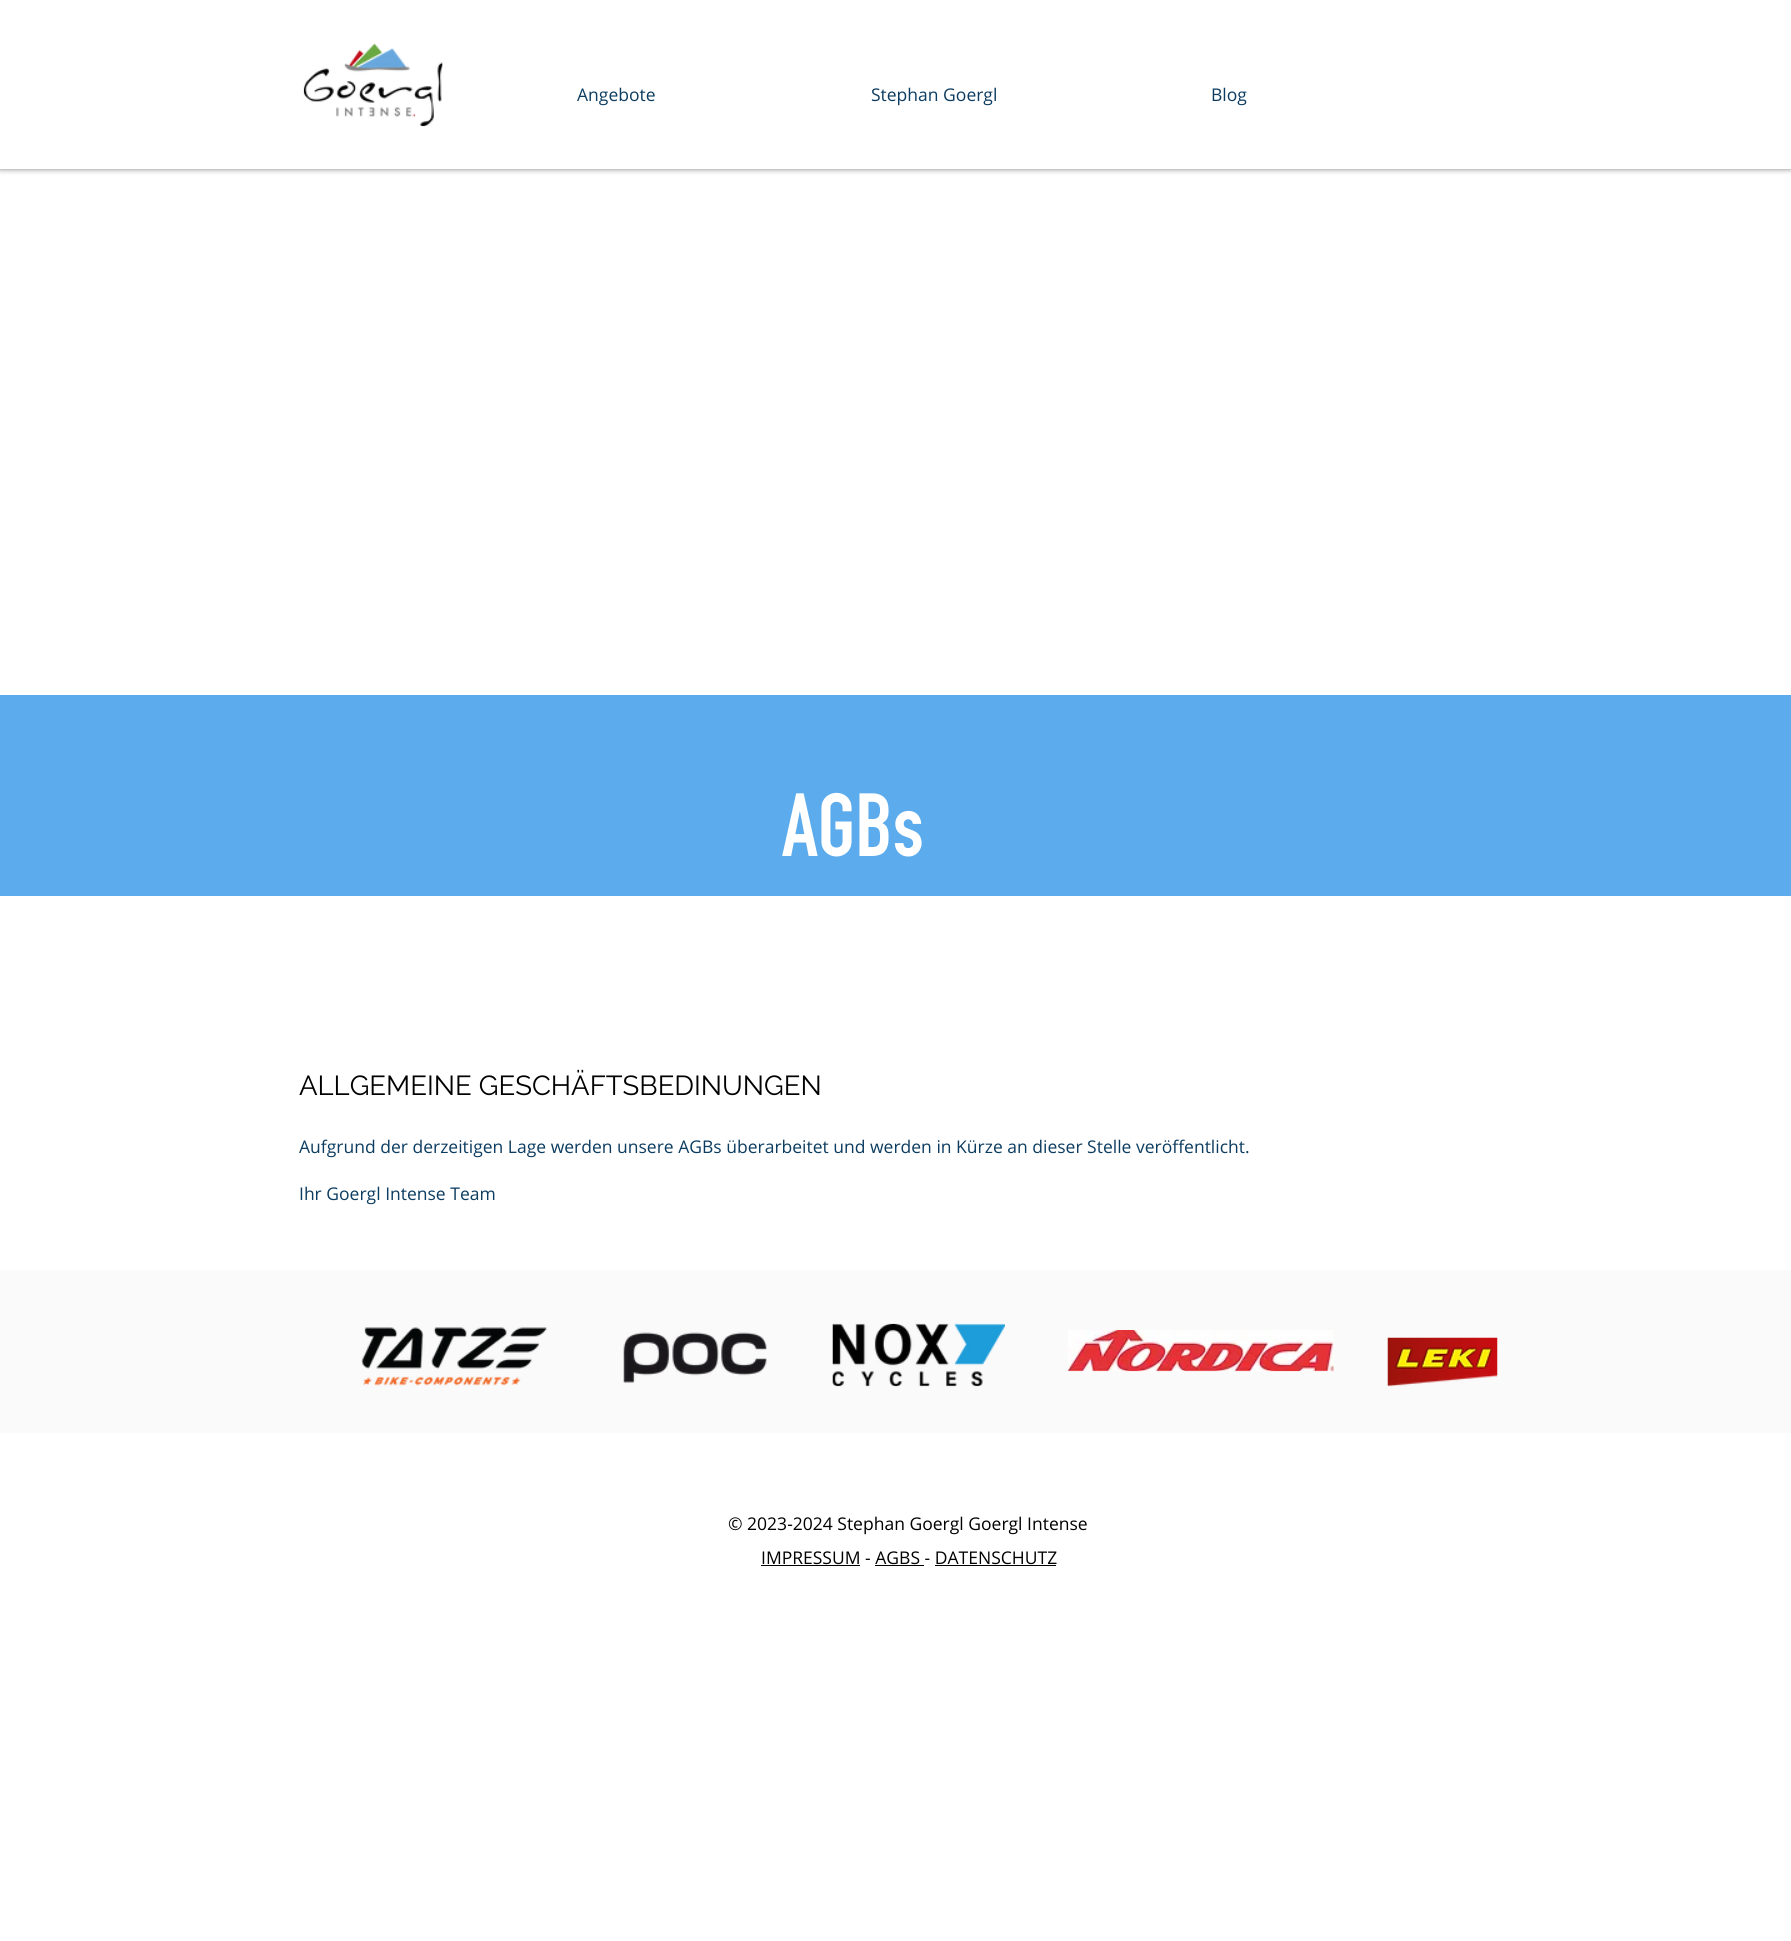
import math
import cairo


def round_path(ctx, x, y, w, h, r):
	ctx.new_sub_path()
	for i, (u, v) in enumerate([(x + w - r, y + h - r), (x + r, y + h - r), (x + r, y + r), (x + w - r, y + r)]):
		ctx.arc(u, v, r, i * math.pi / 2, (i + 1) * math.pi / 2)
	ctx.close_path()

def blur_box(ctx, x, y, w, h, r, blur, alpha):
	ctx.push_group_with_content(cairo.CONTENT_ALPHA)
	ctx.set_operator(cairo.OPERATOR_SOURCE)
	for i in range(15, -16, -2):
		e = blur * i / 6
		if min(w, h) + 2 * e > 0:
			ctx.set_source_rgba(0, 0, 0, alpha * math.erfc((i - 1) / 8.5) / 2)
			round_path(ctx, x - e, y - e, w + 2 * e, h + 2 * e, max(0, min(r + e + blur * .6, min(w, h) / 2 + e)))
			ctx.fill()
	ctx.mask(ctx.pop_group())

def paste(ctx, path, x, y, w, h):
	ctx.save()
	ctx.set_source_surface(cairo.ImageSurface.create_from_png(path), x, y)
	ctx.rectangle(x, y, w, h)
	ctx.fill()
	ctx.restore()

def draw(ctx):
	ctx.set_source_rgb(1, 1, 1)
	ctx.paint()
	ctx.set_source_rgb(0, 0, 0)
	blur_box(ctx, 0, 0, 1791, 169, 0, 3, 0.5)
	ctx.set_source_rgb(1, 1, 1)
	ctx.rectangle(0, 0, 1791, 169)
	ctx.fill()
	paste(ctx, 'media/1.png', 303, 43, 140, 84)
	ctx.select_font_face('Open Sans')
	ctx.set_font_size(17.5)
	ctx.set_source_rgb(0.047, 0.235, 0.376)
	for x, y, s in [
		(577, 101, 'Angebote'),
		(871, 101, 'Stephan Goergl'),
		(1211, 101, 'Blog'),
	]:
		ctx.move_to(x, y)
		ctx.show_text(s)
	ctx.set_source_rgb(0.361, 0.671, 0.925)
	ctx.rectangle(0, 695, 1791, 201)
	ctx.fill()
	ctx.select_font_face('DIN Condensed', cairo.FONT_SLANT_NORMAL, cairo.FONT_WEIGHT_BOLD)
	ctx.set_font_size(88)
	ctx.set_source_rgb(1, 1, 1)
	ctx.move_to(782, 856)
	ctx.show_text('AGBs')
	ctx.select_font_face('Raleway')
	ctx.set_font_size(27.5)
	ctx.set_source_rgb(0, 0, 0)
	ctx.move_to(299, 1095)
	ctx.show_text('ALLGEMEINE GESCHÄFTSBEDINUNGEN')
	ctx.select_font_face('Open Sans')
	ctx.set_font_size(17.5)
	ctx.set_source_rgb(0.047, 0.235, 0.376)
	ctx.move_to(299, 1153)
	ctx.show_text('Aufgrund der derzeitigen Lage werden unsere AGBs überarbeitet und werden in Kürze an dieser Stelle veröffentlicht.')
	ctx.move_to(299, 1200)
	ctx.show_text('Ihr Goergl Intense Team')
	ctx.set_source_rgb(0.98, 0.98, 0.98)
	ctx.rectangle(0, 1270, 1791, 163)
	ctx.fill()
	paste(ctx, 'media/2.png', 361, 1327, 186, 59)
	paste(ctx, 'media/3.png', 623, 1332, 144, 51)
	paste(ctx, 'media/4.png', 832, 1323, 173, 64)
	paste(ctx, 'media/5.png', 1067, 1330, 267, 42)
	paste(ctx, 'media/6.png', 1387, 1337, 111, 50)
	ctx.set_source_rgb(0, 0, 0)
	ctx.move_to(728, 1530)
	ctx.show_text('© 2023-2024 Stephan Goergl Goergl Intense')
	ctx.move_to(761, 1564)
	ctx.show_text('IMPRESSUM - AGBS - DATENSCHUTZ')
	ctx.rectangle(761, 1565, 99, 1)
	ctx.rectangle(875, 1565, 49, 1)
	ctx.rectangle(935, 1565, 121, 1)
	ctx.fill()


surface = cairo.ImageSurface(cairo.FORMAT_RGB24, 1791, 1941)
ctx = cairo.Context(surface)
options = cairo.FontOptions()
options.set_hint_metrics(cairo.HINT_METRICS_OFF)
options.set_hint_style(cairo.HINT_STYLE_NONE)
ctx.set_font_options(options)
ctx.set_miter_limit(4)
draw(ctx)
surface.write_to_png('image.png')
